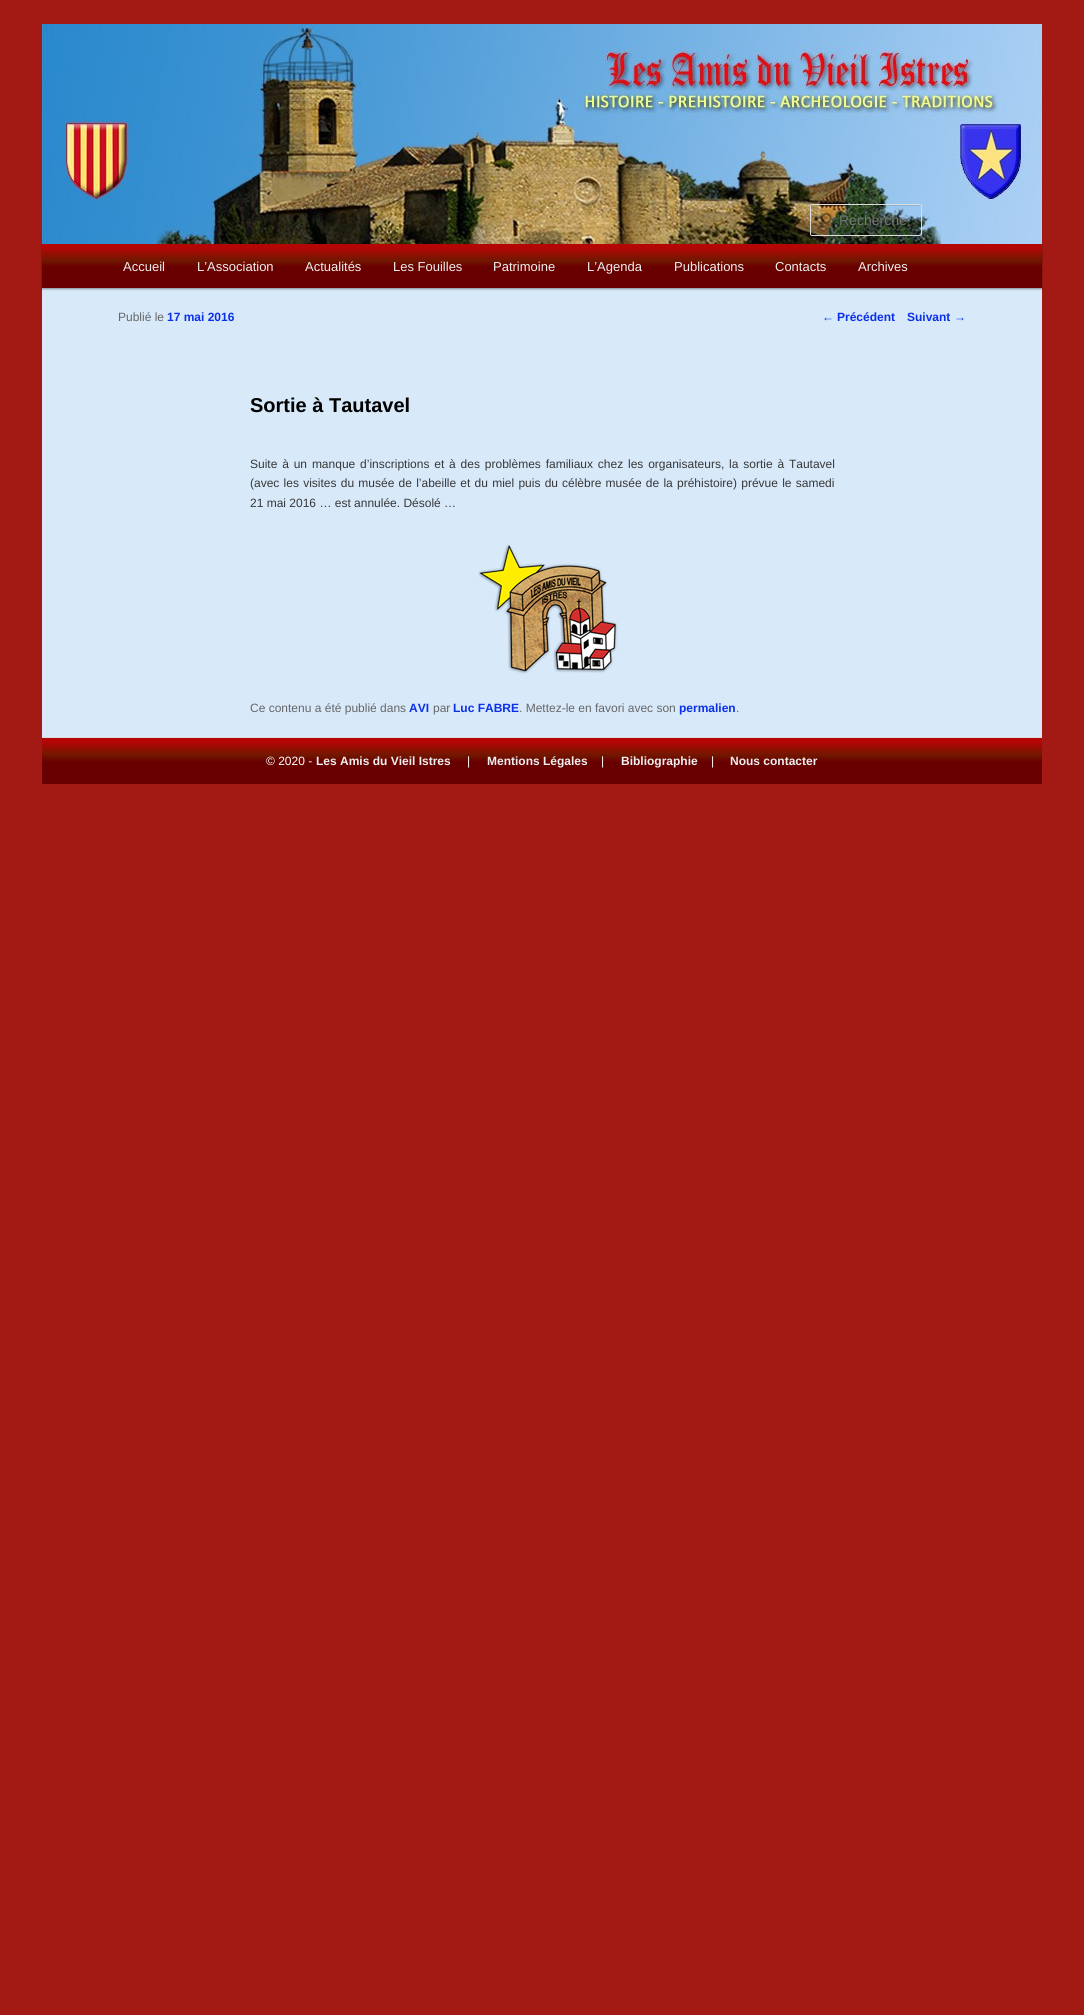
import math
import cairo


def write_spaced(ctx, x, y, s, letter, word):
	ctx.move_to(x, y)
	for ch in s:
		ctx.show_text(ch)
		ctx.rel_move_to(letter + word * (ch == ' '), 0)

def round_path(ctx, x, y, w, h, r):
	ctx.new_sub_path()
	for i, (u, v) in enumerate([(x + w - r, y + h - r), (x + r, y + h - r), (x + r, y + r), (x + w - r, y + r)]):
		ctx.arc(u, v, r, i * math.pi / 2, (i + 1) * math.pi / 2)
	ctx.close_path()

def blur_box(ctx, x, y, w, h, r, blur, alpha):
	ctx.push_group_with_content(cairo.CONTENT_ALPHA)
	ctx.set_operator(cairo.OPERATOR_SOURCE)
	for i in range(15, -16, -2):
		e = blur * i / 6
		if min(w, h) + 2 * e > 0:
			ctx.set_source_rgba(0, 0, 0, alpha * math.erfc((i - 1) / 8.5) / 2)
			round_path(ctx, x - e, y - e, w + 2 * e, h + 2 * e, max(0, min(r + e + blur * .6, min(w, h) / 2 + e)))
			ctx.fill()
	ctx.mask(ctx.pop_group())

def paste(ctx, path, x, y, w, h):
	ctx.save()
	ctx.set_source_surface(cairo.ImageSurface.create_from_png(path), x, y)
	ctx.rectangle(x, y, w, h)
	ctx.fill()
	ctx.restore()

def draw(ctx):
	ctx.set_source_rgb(0.635, 0.102, 0.078)
	ctx.paint()
	ctx.set_source_rgb(0.847, 0.914, 0.98)
	ctx.rectangle(42, 288, 1000, 449)
	ctx.fill()
	ctx.set_source_rgb(0, 0, 0)
	blur_box(ctx, 42, 245, 1000, 44, 0, 1, 0.4)
	paste(ctx, 'media/1.png', 42, 24, 1000, 220)
	paste(ctx, 'media/2.png', 819, 212, 13, 17)
	ctx.set_source_rgba(0, 0, 0, 0.1)
	ctx.new_path()
	ctx.move_to(812, 206)
	ctx.line_to(921, 206)
	ctx.line_to(921, 207)
	ctx.line_to(920, 205)
	ctx.line_to(830, 205)
	ctx.curve_to(826, 205, 811, 200, 811, 207)
	ctx.curve_to(811, 206, 811, 206, 812, 206)
	ctx.close_path()
	ctx.fill()
	round_path(ctx, 810.5, 204.5, 111, 31, 1.5)
	ctx.set_source_rgb(0.867, 0.867, 0.867)
	ctx.set_line_width(1)
	ctx.stroke()
	ctx.select_font_face('Liberation Sans')
	ctx.set_font_size(14)
	ctx.set_source_rgb(0.459, 0.459, 0.459)
	ctx.move_to(839, 225)
	ctx.show_text('Recherche')
	gradient = cairo.LinearGradient(42, 288, 42, 244)
	gradient.add_color_stop_rgba(0.48, 0.412, 0, 0, 1)
	gradient.add_color_stop_rgba(0.63, 0.443, 0.09, 0, 1)
	gradient.add_color_stop_rgba(0.92, 0.71, 0.024, 0.024, 1)
	ctx.set_source(gradient)
	ctx.rectangle(42, 244, 1000, 44)
	ctx.fill()
	ctx.set_font_size(13)
	ctx.set_source_rgb(0.937, 0.937, 0.937)
	for x, y, s in [
		(123, 271, 'Accueil'),
		(197, 271, 'L’Association'),
		(305, 271, 'Actualités'),
		(393, 271, 'Les Fouilles'),
		(493, 271, 'Patrimoine'),
		(587, 271, 'L’Agenda'),
		(674, 271, 'Publications'),
		(775, 271, 'Contacts'),
		(858, 271, 'Archives'),
	]:
		ctx.move_to(x, y)
		ctx.show_text(s)
	ctx.set_font_size(12)
	ctx.set_source_rgb(0.4, 0.4, 0.4)
	ctx.move_to(118, 321)
	ctx.show_text('Publié le')
	ctx.select_font_face('Liberation Sans', cairo.FONT_SLANT_NORMAL, cairo.FONT_WEIGHT_BOLD)
	ctx.set_source_rgb(0.043, 0.188, 0.91)
	ctx.move_to(167, 321)
	ctx.show_text('17 mai 2016')
	ctx.set_font_size(20)
	ctx.set_source_rgb(0, 0, 0)
	ctx.move_to(250, 412)
	ctx.show_text('Sortie à Tautavel')
	ctx.select_font_face('Liberation Sans')
	ctx.set_font_size(12)
	ctx.set_source_rgb(0.216, 0.216, 0.216)
	write_spaced(ctx, 250, 468, 'Suite à un manque d’inscriptions et à des problèmes familiaux chez les organisateurs, la sortie à Tautavel', 0, 1.5)
	write_spaced(ctx, 250, 487, '(avec les visites du musée de l’abeille et du miel puis du', 0, 0.9)
	write_spaced(ctx, 562, 487, 'célèbre musée de la préhistoire) prévue le samedi', 0, 0.9)
	ctx.move_to(250, 507)
	ctx.show_text('21 mai 2016 … est annulée. Désolé …')
	paste(ctx, 'media/3.png', 478, 544, 140, 130)
	ctx.set_source_rgb(0.4, 0.4, 0.4)
	ctx.move_to(250, 712)
	ctx.show_text('Ce contenu a été publié dans')
	ctx.select_font_face('Liberation Sans', cairo.FONT_SLANT_NORMAL, cairo.FONT_WEIGHT_BOLD)
	ctx.set_source_rgb(0.043, 0.188, 0.91)
	ctx.move_to(409, 712)
	ctx.show_text('AVI')
	ctx.select_font_face('Liberation Sans')
	ctx.set_source_rgb(0.4, 0.4, 0.4)
	ctx.move_to(433, 712)
	ctx.show_text('par')
	ctx.select_font_face('Liberation Sans', cairo.FONT_SLANT_NORMAL, cairo.FONT_WEIGHT_BOLD)
	ctx.set_source_rgb(0.043, 0.188, 0.91)
	ctx.move_to(453, 712)
	ctx.show_text('Luc FABRE')
	ctx.select_font_face('Liberation Sans')
	ctx.set_source_rgb(0.4, 0.4, 0.4)
	ctx.move_to(519, 712)
	ctx.show_text('. Mettez-le en favori avec son')
	ctx.select_font_face('Liberation Sans', cairo.FONT_SLANT_NORMAL, cairo.FONT_WEIGHT_BOLD)
	ctx.set_source_rgb(0.043, 0.188, 0.91)
	ctx.move_to(679, 712)
	ctx.show_text('permalien')
	ctx.select_font_face('Liberation Sans')
	ctx.set_source_rgb(0.4, 0.4, 0.4)
	ctx.move_to(736, 712)
	ctx.show_text('.')
	ctx.set_source_rgb(0.043, 0.188, 0.91)
	ctx.move_to(822, 321)
	ctx.show_text('←')
	ctx.select_font_face('Liberation Sans', cairo.FONT_SLANT_NORMAL, cairo.FONT_WEIGHT_BOLD)
	ctx.move_to(837, 321)
	ctx.show_text('Précédent')
	ctx.move_to(907, 321)
	ctx.show_text('Suivant')
	ctx.select_font_face('Liberation Sans')
	ctx.move_to(954, 321)
	ctx.show_text('→')
	gradient = cairo.LinearGradient(42, 784, 42, 738)
	gradient.add_color_stop_rgba(0.48, 0.412, 0, 0, 1)
	gradient.add_color_stop_rgba(0.63, 0.443, 0.09, 0, 1)
	gradient.add_color_stop_rgba(0.92, 0.71, 0.024, 0.024, 1)
	ctx.set_source(gradient)
	ctx.rectangle(42, 738, 1000, 46)
	ctx.fill()
	ctx.set_source_rgb(0.867, 0.867, 0.867)
	ctx.rectangle(42, 737, 1000, 1)
	ctx.fill()
	ctx.set_source_rgb(1, 1, 1)
	ctx.move_to(266, 765)
	ctx.show_text('© 2020 -')
	ctx.select_font_face('Liberation Sans', cairo.FONT_SLANT_NORMAL, cairo.FONT_WEIGHT_BOLD)
	ctx.set_source_rgb(0.937, 0.937, 0.937)
	ctx.move_to(316, 765)
	ctx.show_text('Les Amis du Vieil Istres')
	ctx.select_font_face('Liberation Sans')
	ctx.set_source_rgb(1, 1, 1)
	ctx.move_to(467, 765)
	ctx.show_text('|')
	ctx.select_font_face('Liberation Sans', cairo.FONT_SLANT_NORMAL, cairo.FONT_WEIGHT_BOLD)
	ctx.set_source_rgb(0.937, 0.937, 0.937)
	ctx.move_to(487, 765)
	ctx.show_text('Mentions Légales')
	ctx.select_font_face('Liberation Sans')
	ctx.set_source_rgb(1, 1, 1)
	ctx.move_to(601, 765)
	ctx.show_text('|')
	ctx.select_font_face('Liberation Sans', cairo.FONT_SLANT_NORMAL, cairo.FONT_WEIGHT_BOLD)
	ctx.set_source_rgb(0.937, 0.937, 0.937)
	ctx.move_to(621, 765)
	ctx.show_text('Bibliographie')
	ctx.select_font_face('Liberation Sans')
	ctx.set_source_rgb(1, 1, 1)
	ctx.move_to(711, 765)
	ctx.show_text('|')
	ctx.select_font_face('Liberation Sans', cairo.FONT_SLANT_NORMAL, cairo.FONT_WEIGHT_BOLD)
	ctx.set_source_rgb(0.937, 0.937, 0.937)
	ctx.move_to(730, 765)
	ctx.show_text('Nous contacter')


surface = cairo.ImageSurface(cairo.FORMAT_RGB24, 1084, 2015)
ctx = cairo.Context(surface)
options = cairo.FontOptions()
options.set_hint_metrics(cairo.HINT_METRICS_OFF)
options.set_hint_style(cairo.HINT_STYLE_NONE)
ctx.set_font_options(options)
ctx.set_miter_limit(4)
draw(ctx)
surface.write_to_png('image.png')
